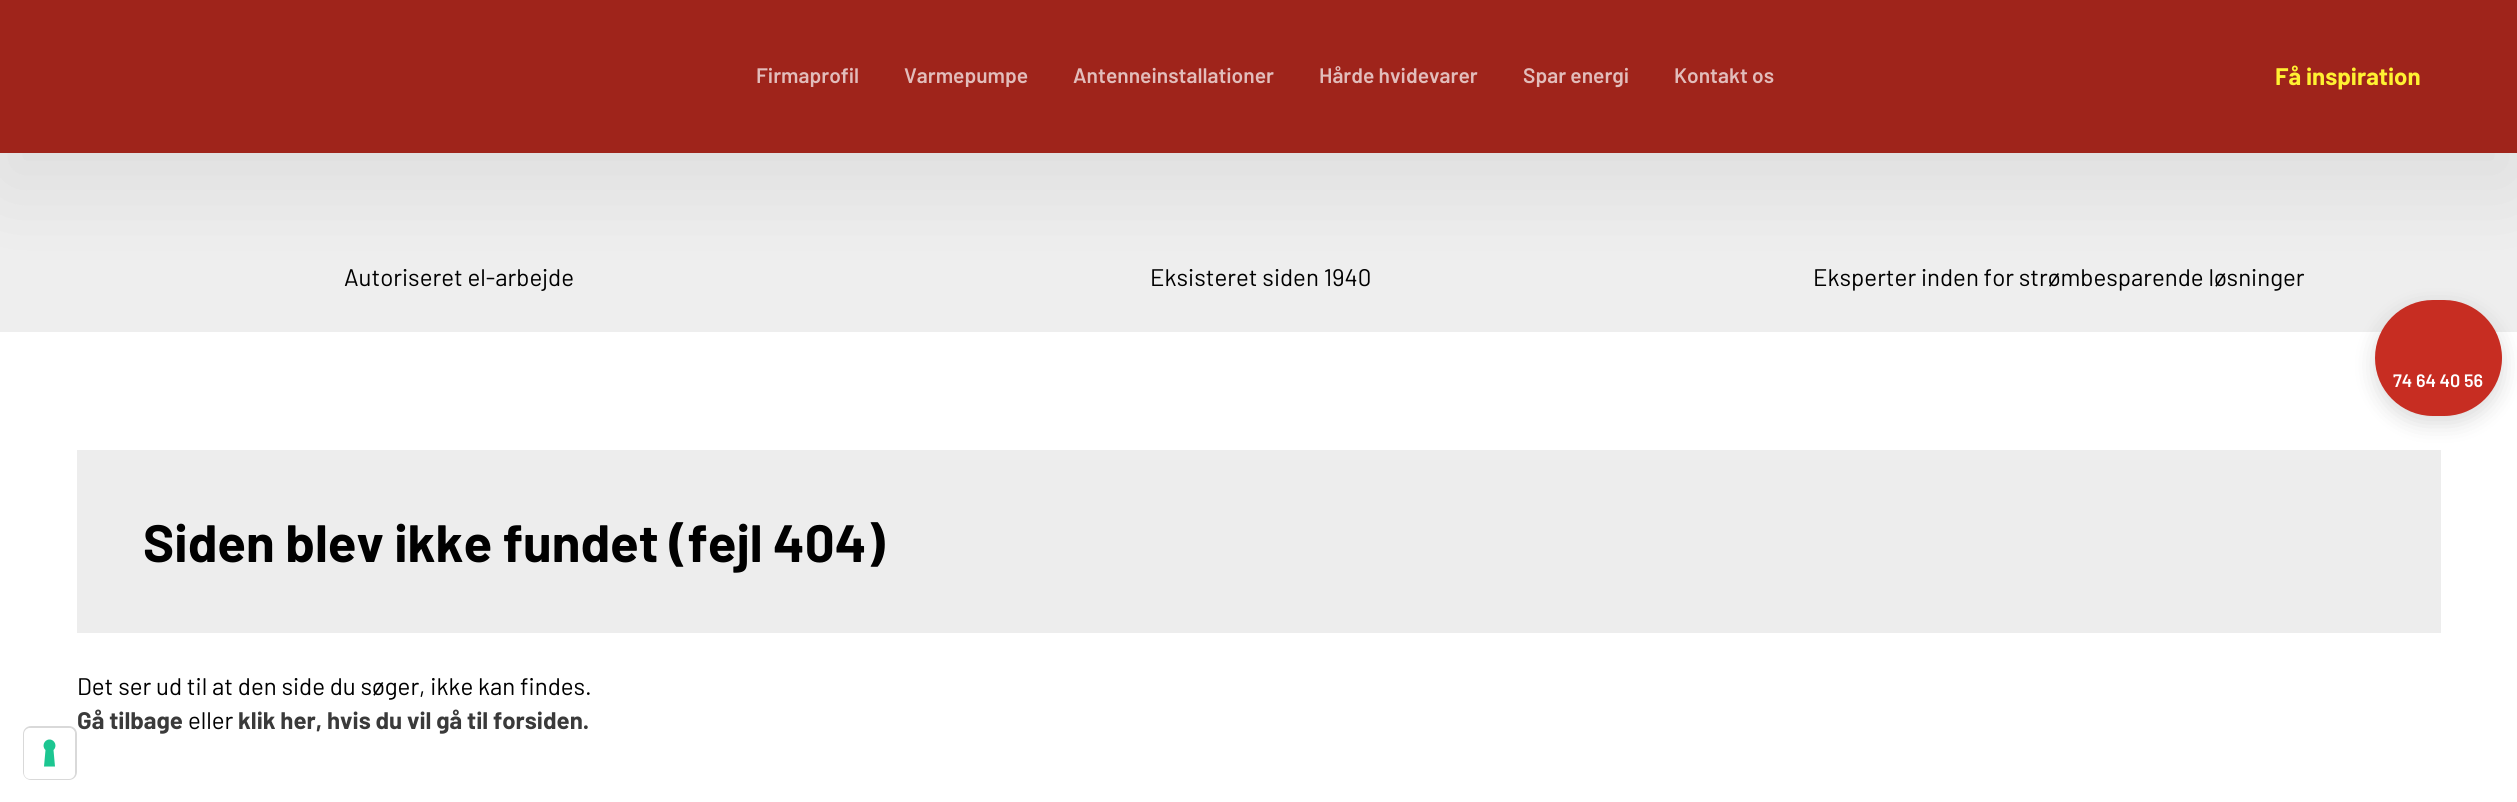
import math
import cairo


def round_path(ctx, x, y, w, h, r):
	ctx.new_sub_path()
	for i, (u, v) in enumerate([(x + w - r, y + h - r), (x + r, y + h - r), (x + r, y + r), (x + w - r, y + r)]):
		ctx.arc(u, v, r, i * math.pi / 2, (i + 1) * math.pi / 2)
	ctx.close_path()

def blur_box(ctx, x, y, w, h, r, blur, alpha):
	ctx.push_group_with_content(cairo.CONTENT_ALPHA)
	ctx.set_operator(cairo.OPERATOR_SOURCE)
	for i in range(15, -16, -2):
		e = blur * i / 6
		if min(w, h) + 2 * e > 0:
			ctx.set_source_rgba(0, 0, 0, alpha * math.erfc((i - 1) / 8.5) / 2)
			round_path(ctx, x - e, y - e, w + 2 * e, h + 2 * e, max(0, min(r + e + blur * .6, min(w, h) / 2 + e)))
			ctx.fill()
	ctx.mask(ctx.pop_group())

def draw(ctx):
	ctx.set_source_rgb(1, 1, 1)
	ctx.paint()
	ctx.set_source_rgb(0.933, 0.933, 0.933)
	ctx.rectangle(0, 153, 2517, 179)
	ctx.fill()
	ctx.set_source_rgb(0, 0, 0)
	blur_box(ctx, 0, 30, 2517, 153, 0, 45, 0.08)
	ctx.set_source_rgb(0.624, 0.141, 0.106)
	ctx.rectangle(0, 0, 2517, 153)
	ctx.fill()
	ctx.select_font_face('Barlow SemiBold')
	ctx.set_font_size(21)
	ctx.set_source_rgb(0.886, 0.741, 0.733)
	for x, y, s in [
		(756, 83, 'Firmaprofil'),
		(904, 83, 'Varmepumpe'),
		(1073, 83, 'Antenneinstallationer'),
		(1319, 83, 'Hårde hvidevarer'),
		(1523, 83, 'Spar energi'),
		(1674, 83, 'Kontakt os'),
	]:
		ctx.move_to(x, y)
		ctx.show_text(s)
	ctx.select_font_face('Barlow', cairo.FONT_SLANT_NORMAL, cairo.FONT_WEIGHT_BOLD)
	ctx.set_font_size(24)
	ctx.set_source_rgb(1, 0.945, 0.196)
	ctx.move_to(2275, 85)
	ctx.show_text('Få inspiration')
	ctx.select_font_face('Barlow')
	ctx.set_source_rgb(0, 0, 0)
	for x, y, s in [
		(344, 286, 'Autoriseret el-arbejde'),
		(1150, 286, 'Eksisteret siden 1940'),
		(1813, 286, 'Eksperter inden for strømbesparende løsninger'),
	]:
		ctx.move_to(x, y)
		ctx.show_text(s)
	ctx.set_source_rgb(0.929, 0.929, 0.929)
	ctx.rectangle(77, 450, 2364, 183)
	ctx.fill()
	ctx.set_source_rgb(0, 0, 0)
	blur_box(ctx, 2375, 308, 127, 115, 57.5, 11, 0.15)
	ctx.set_source_rgb(0.78, 0.176, 0.133)
	round_path(ctx, 2375, 300, 127, 116, 58)
	ctx.fill()
	ctx.select_font_face('Barlow SemiBold')
	ctx.set_font_size(18)
	ctx.set_source_rgb(1, 1, 1)
	ctx.move_to(2393, 387)
	ctx.show_text('74 64 40 56')
	ctx.select_font_face('Barlow', cairo.FONT_SLANT_NORMAL, cairo.FONT_WEIGHT_BOLD)
	ctx.set_font_size(52.5)
	ctx.set_source_rgb(0, 0, 0)
	ctx.move_to(143, 562)
	ctx.show_text('Siden blev ikke fundet (fejl 404)')
	ctx.select_font_face('Barlow')
	ctx.set_font_size(24)
	ctx.move_to(77, 695)
	ctx.show_text('Det ser ud til at den side du søger, ikke kan findes.')
	ctx.select_font_face('Barlow', cairo.FONT_SLANT_NORMAL, cairo.FONT_WEIGHT_BOLD)
	ctx.set_source_rgb(0.227, 0.227, 0.227)
	ctx.move_to(77, 729)
	ctx.show_text('Gå tilbage')
	ctx.select_font_face('Barlow')
	ctx.set_source_rgb(0, 0, 0)
	ctx.move_to(188, 729)
	ctx.show_text('eller')
	ctx.select_font_face('Barlow', cairo.FONT_SLANT_NORMAL, cairo.FONT_WEIGHT_BOLD)
	ctx.set_source_rgb(0.227, 0.227, 0.227)
	ctx.move_to(238, 729)
	ctx.show_text('klik her, hvis du vil gå til forsiden.')
	round_path(ctx, 24, 727, 52, 52, 7)
	ctx.set_source_rgb(0.851, 0.851, 0.851)
	ctx.stroke()
	ctx.set_source_rgb(1, 1, 1)
	round_path(ctx, 24, 728, 51, 51, 6)
	ctx.fill()
	ctx.set_source_rgb(0.11, 0.776, 0.569)
	ctx.set_fill_rule(cairo.FILL_RULE_EVEN_ODD)
	ctx.new_path()
	ctx.move_to(49.5, 739.5)
	ctx.curve_to(55, 739.5, 57.5, 746.5, 53.5, 750)
	ctx.line_to(55, 766.5)
	ctx.line_to(44, 766.5)
	ctx.line_to(45.5, 750)
	ctx.curve_to(41.5, 746.5, 44, 739.5, 49.5, 739.5)
	ctx.close_path()
	ctx.fill()


surface = cairo.ImageSurface(cairo.FORMAT_RGB24, 2517, 802)
ctx = cairo.Context(surface)
options = cairo.FontOptions()
options.set_hint_metrics(cairo.HINT_METRICS_OFF)
options.set_hint_style(cairo.HINT_STYLE_NONE)
ctx.set_font_options(options)
ctx.set_miter_limit(4)
draw(ctx)
surface.write_to_png('image.png')
